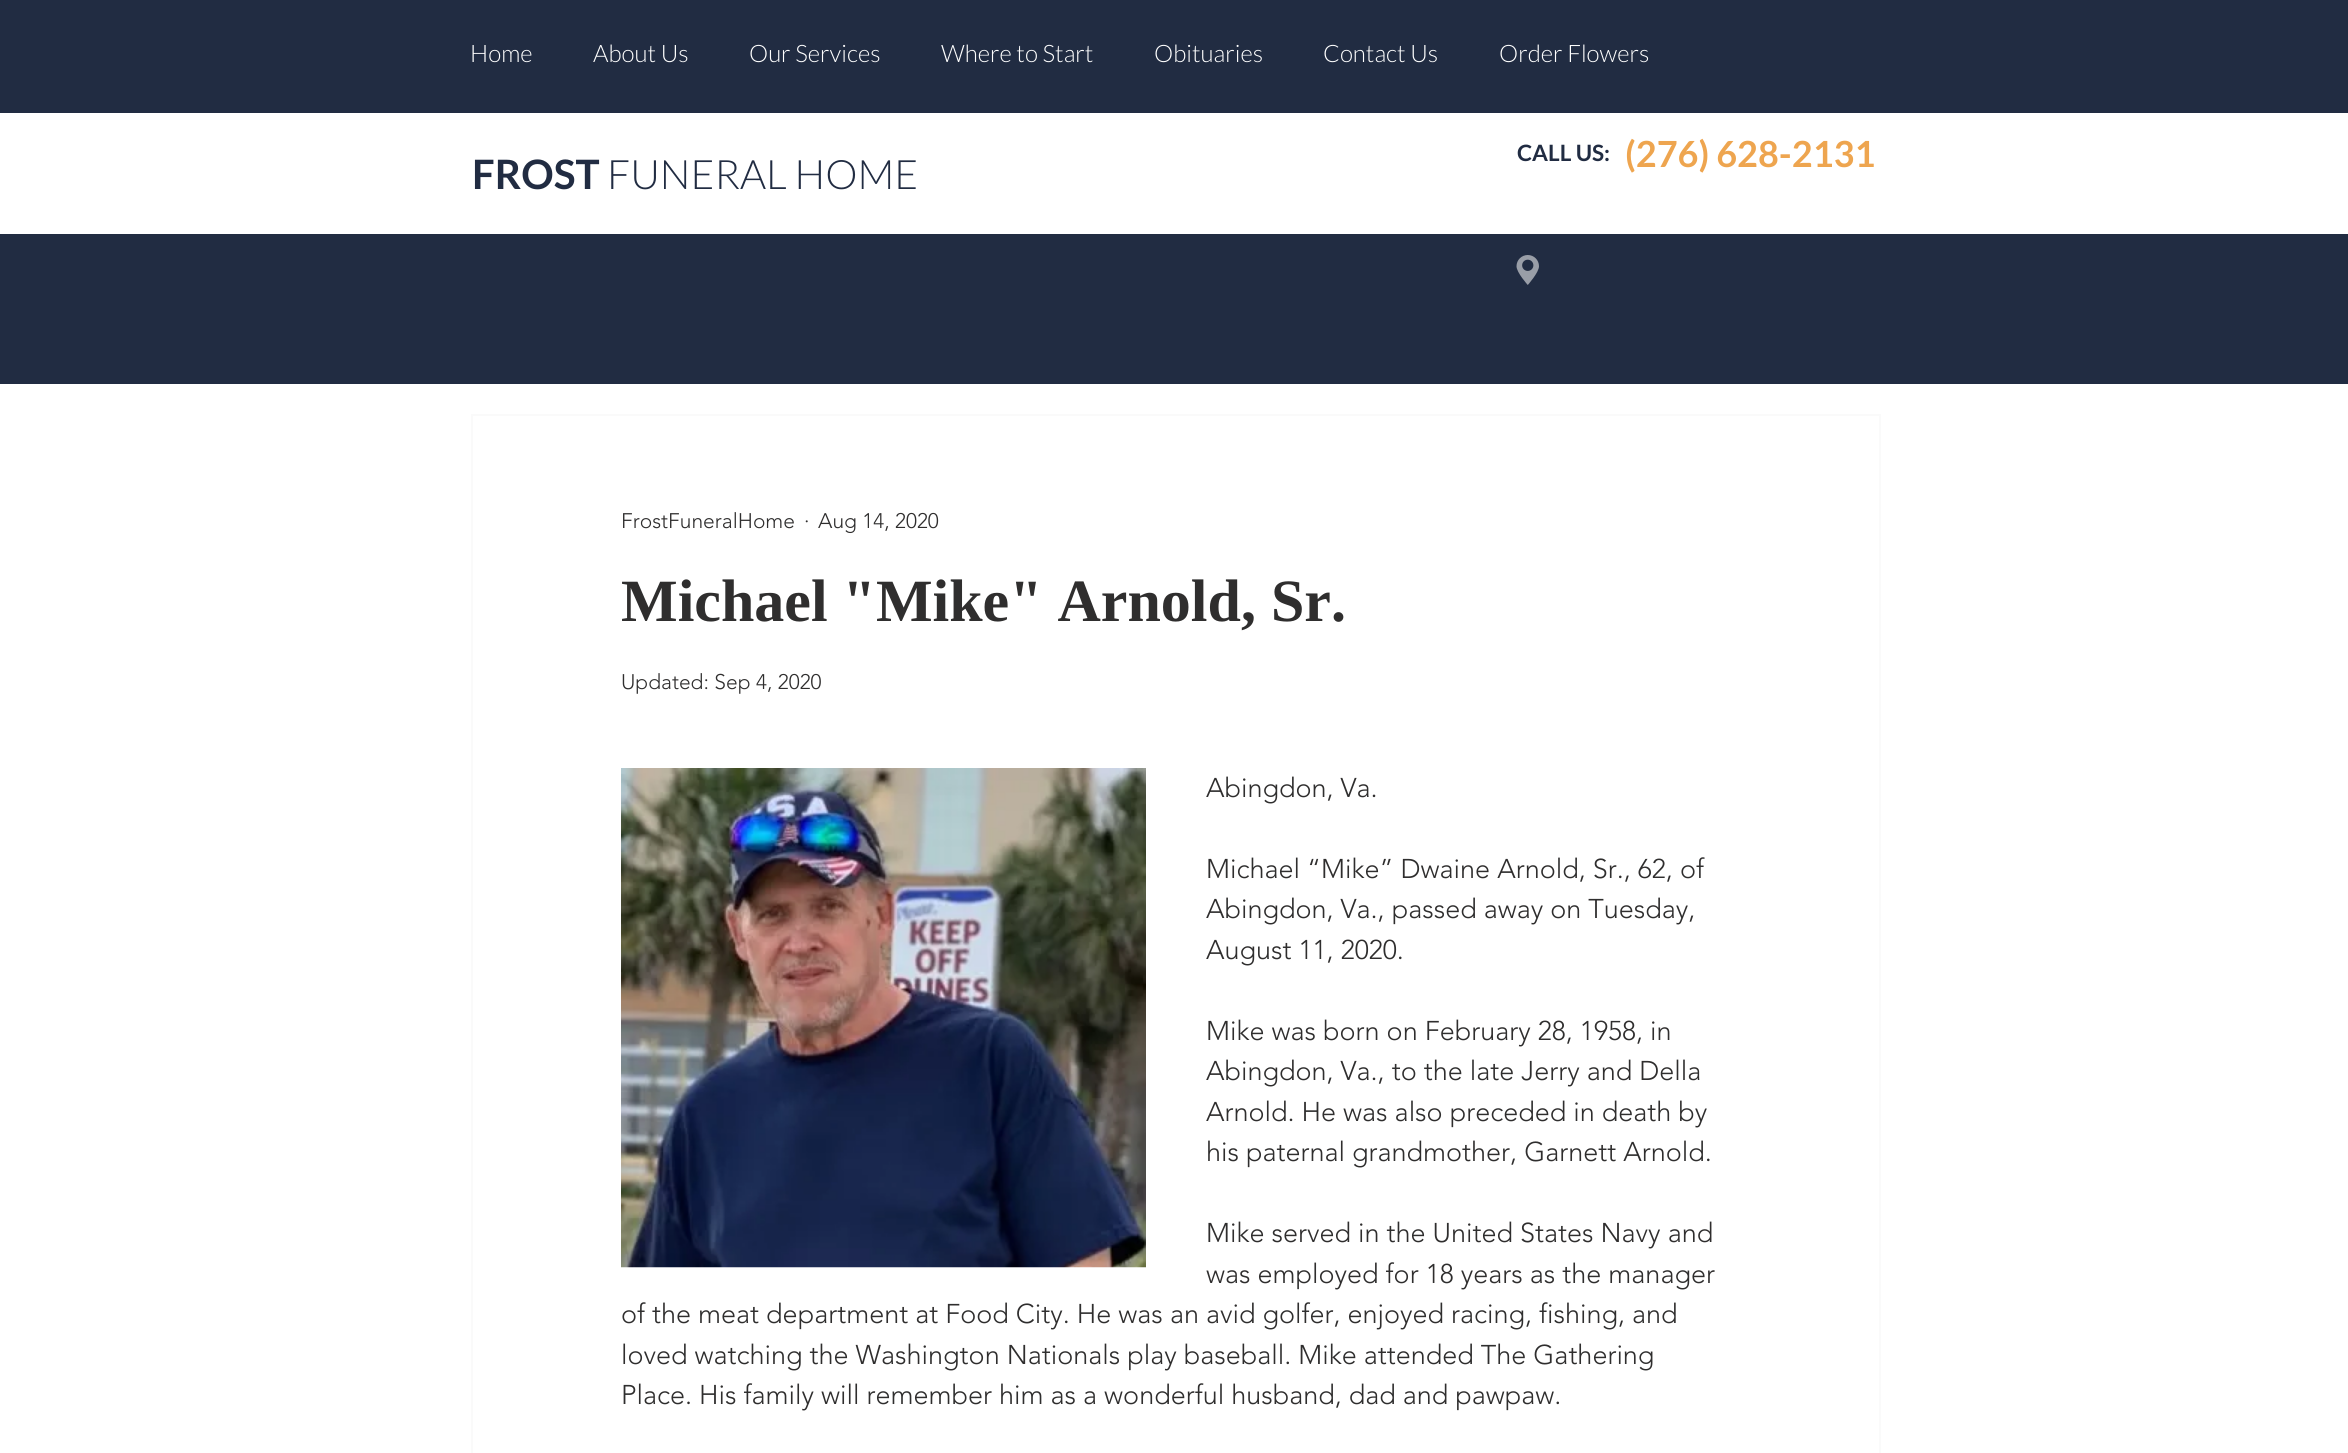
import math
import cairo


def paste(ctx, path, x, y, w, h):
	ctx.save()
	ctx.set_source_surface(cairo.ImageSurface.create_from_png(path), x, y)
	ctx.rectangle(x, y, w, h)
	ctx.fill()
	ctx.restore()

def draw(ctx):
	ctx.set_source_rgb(1, 1, 1)
	ctx.paint()
	ctx.set_source_rgb(0.129, 0.173, 0.259)
	ctx.rectangle(0, 0, 2348, 384)
	ctx.fill()
	ctx.select_font_face('Lato Light')
	ctx.set_font_size(24)
	ctx.set_source_rgb(1, 1, 1)
	for x, y, s in [
		(470, 62, 'Home'),
		(593, 62, 'About Us'),
		(749, 62, 'Our Services'),
		(941, 62, 'Where to Start'),
		(1154, 62, 'Obituaries'),
		(1323, 62, 'Contact Us'),
		(1499, 62, 'Order Flowers'),
	]:
		ctx.move_to(x, y)
		ctx.show_text(s)
	ctx.rectangle(0, 113, 2348, 121)
	ctx.fill()
	ctx.select_font_face('Lato', cairo.FONT_SLANT_NORMAL, cairo.FONT_WEIGHT_BOLD)
	ctx.set_font_size(40.5)
	ctx.set_source_rgb(0.129, 0.173, 0.259)
	ctx.move_to(472, 189)
	ctx.show_text('FROST')
	ctx.select_font_face('Lato Light')
	ctx.move_to(607, 189)
	ctx.show_text('FUNERAL HOME')
	ctx.select_font_face('Lato', cairo.FONT_SLANT_NORMAL, cairo.FONT_WEIGHT_BOLD)
	ctx.set_font_size(22.5)
	ctx.move_to(1517, 161)
	ctx.show_text('CALL US:')
	ctx.set_font_size(36)
	ctx.set_source_rgb(0.933, 0.647, 0.31)
	ctx.move_to(1625, 167)
	ctx.show_text('(276) 628-2131')
	paste(ctx, 'media/1.png', 1516, 255, 23, 30)
	ctx.rectangle(472, 415, 1408, 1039)
	ctx.set_source_rgb(0.98, 0.98, 0.98)
	ctx.stroke()
	ctx.select_font_face('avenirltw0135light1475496 Light')
	ctx.set_font_size(21)
	ctx.set_source_rgb(0.184, 0.18, 0.18)
	for x, y, s in [
		(621, 528, 'FrostFuneralHome'),
		(804, 528, '·'),
		(818, 528, 'Aug 14, 2020'),
	]:
		ctx.move_to(x, y)
		ctx.show_text(s)
	ctx.select_font_face('Liberation Serif', cairo.FONT_SLANT_NORMAL, cairo.FONT_WEIGHT_BOLD)
	ctx.set_font_size(60)
	ctx.move_to(621, 621)
	ctx.show_text('Michael "Mike" Arnold, Sr.')
	ctx.select_font_face('avenirltw0135light1475496 Light')
	ctx.set_font_size(21)
	ctx.move_to(621, 689)
	ctx.show_text('Updated: Sep 4, 2020')
	paste(ctx, 'media/2.png', 621, 768, 525, 500)
	ctx.set_font_size(27)
	for x, y, s in [
		(1206, 797, 'Abingdon, Va.'),
		(1206, 878, 'Michael “Mike” Dwaine Arnold, Sr., 62, of'),
		(1206, 918, 'Abingdon, Va., passed away on Tuesday,'),
		(1206, 959, 'August 11, 2020.'),
		(1206, 1040, 'Mike was born on February 28, 1958, in'),
		(1206, 1080, 'Abingdon, Va., to the late Jerry and Della'),
		(1206, 1121, 'Arnold. He was also preceded in death by'),
		(1206, 1161, 'his paternal grandmother, Garnett Arnold.'),
		(1206, 1242, 'Mike served in the United States Navy and'),
		(1206, 1283, 'was employed for 18 years as the manager'),
		(621, 1323, 'of the meat department at Food City. He was an avid golfer, enjoyed racing, fishing, and'),
		(621, 1364, 'loved watching the Washington Nationals play baseball. Mike attended The Gathering'),
		(621, 1404, 'Place. His family will remember him as a wonderful husband, dad and pawpaw.'),
	]:
		ctx.move_to(x, y)
		ctx.show_text(s)


surface = cairo.ImageSurface(cairo.FORMAT_RGB24, 2348, 1453)
ctx = cairo.Context(surface)
options = cairo.FontOptions()
options.set_hint_metrics(cairo.HINT_METRICS_OFF)
options.set_hint_style(cairo.HINT_STYLE_NONE)
ctx.set_font_options(options)
ctx.set_miter_limit(4)
draw(ctx)
surface.write_to_png('image.png')
